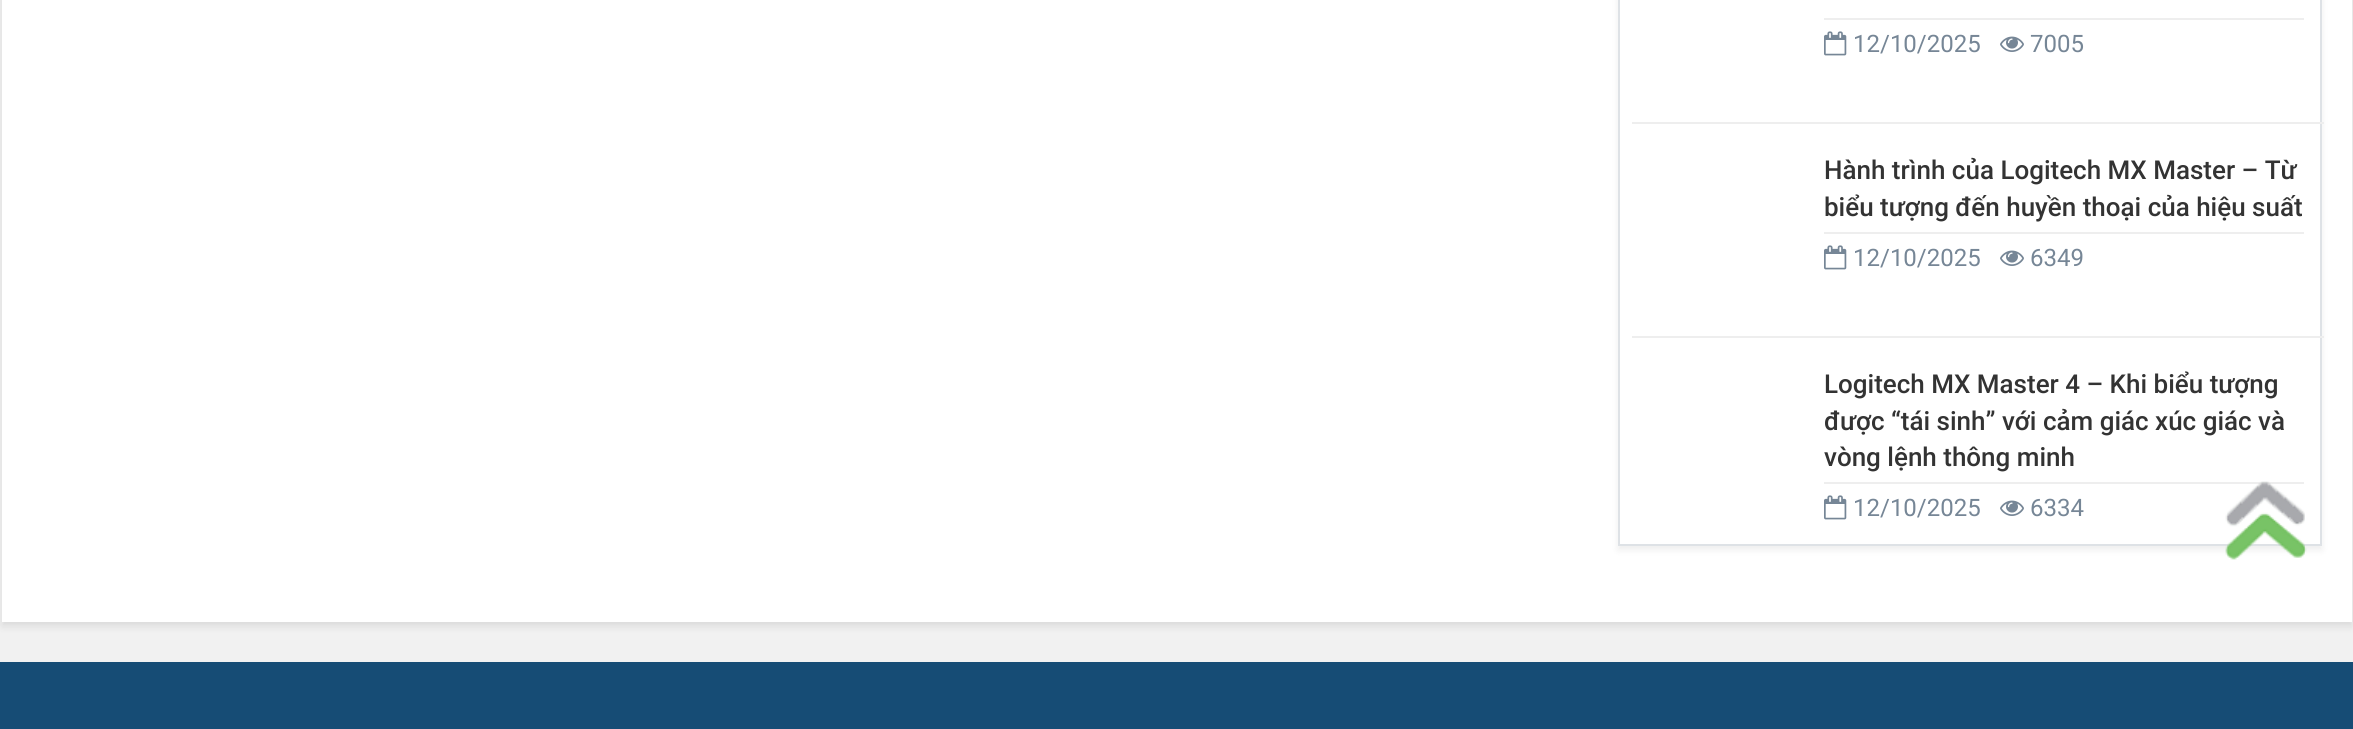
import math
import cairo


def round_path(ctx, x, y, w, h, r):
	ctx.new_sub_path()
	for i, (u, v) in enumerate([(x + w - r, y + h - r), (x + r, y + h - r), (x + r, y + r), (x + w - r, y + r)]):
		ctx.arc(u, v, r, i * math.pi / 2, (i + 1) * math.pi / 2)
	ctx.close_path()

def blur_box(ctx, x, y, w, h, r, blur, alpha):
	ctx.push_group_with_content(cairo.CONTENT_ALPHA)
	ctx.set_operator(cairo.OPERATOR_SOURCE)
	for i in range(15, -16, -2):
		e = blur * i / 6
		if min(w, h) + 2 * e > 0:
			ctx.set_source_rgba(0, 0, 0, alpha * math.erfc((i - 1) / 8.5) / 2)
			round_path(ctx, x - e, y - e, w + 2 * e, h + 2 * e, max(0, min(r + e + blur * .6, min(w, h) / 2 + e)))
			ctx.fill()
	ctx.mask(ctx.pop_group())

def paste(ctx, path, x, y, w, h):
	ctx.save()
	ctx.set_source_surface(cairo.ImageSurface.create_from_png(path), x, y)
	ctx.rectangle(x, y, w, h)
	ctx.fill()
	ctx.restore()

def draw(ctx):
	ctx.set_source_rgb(0.945, 0.945, 0.945)
	ctx.paint()
	ctx.set_source_rgb(0, 0, 0)
	blur_box(ctx, 2, -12, 2350, 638, 0, 4, 0.1)
	ctx.set_source_rgb(1, 1, 1)
	ctx.rectangle(2, 0, 2350, 622)
	ctx.fill()
	ctx.save()
	ctx.set_fill_rule(cairo.FILL_RULE_EVEN_ODD)
	ctx.new_path()
	ctx.move_to(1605, 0)
	ctx.line_to(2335, 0)
	ctx.line_to(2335, 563)
	ctx.line_to(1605, 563)
	ctx.close_path()
	ctx.move_to(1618, -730)
	ctx.line_to(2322, -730)
	ctx.line_to(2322, 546)
	ctx.line_to(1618, 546)
	ctx.close_path()
	ctx.clip()
	ctx.set_source_rgb(0, 0, 0)
	blur_box(ctx, 1618, -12, 704, 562, 0, 4, 0.07)
	ctx.restore()
	ctx.rectangle(1619, -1, 702, 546)
	ctx.set_source_rgb(0.871, 0.886, 0.902)
	ctx.stroke()
	ctx.set_source_rgb(0.933, 0.933, 0.933)
	ctx.rectangle(1632, 122, 692, 2)
	ctx.fill()
	ctx.rectangle(1824, 18, 480, 2)
	ctx.fill()
	paste(ctx, 'media/1.png', 1824, 31, 23, 25)
	ctx.select_font_face('Roboto')
	ctx.set_font_size(24)
	ctx.set_source_rgb(0.463, 0.525, 0.588)
	ctx.move_to(1853, 52)
	ctx.show_text('12/10/2025')
	paste(ctx, 'media/2.png', 2000, 36, 24, 16)
	ctx.move_to(2030, 52)
	ctx.show_text('7005')
	ctx.set_source_rgb(0.933, 0.933, 0.933)
	ctx.rectangle(1632, 336, 692, 2)
	ctx.fill()
	ctx.select_font_face('Roboto Medium')
	ctx.set_font_size(26)
	ctx.set_source_rgb(0.2, 0.2, 0.2)
	ctx.move_to(1824, 179)
	ctx.show_text('Hành trình của Logitech MX Master – Từ')
	ctx.move_to(1824, 216)
	ctx.show_text('biểu tượng đến huyền thoại của hiệu suất')
	ctx.set_source_rgb(0.933, 0.933, 0.933)
	ctx.rectangle(1824, 232, 480, 2)
	ctx.fill()
	paste(ctx, 'media/1.png', 1824, 245, 23, 25)
	ctx.select_font_face('Roboto')
	ctx.set_font_size(24)
	ctx.set_source_rgb(0.463, 0.525, 0.588)
	ctx.move_to(1853, 266)
	ctx.show_text('12/10/2025')
	paste(ctx, 'media/2.png', 2000, 250, 24, 16)
	ctx.move_to(2030, 266)
	ctx.show_text('6349')
	ctx.select_font_face('Roboto Medium')
	ctx.set_font_size(26)
	ctx.set_source_rgb(0.2, 0.2, 0.2)
	for x, y, s in [
		(1824, 393, 'Logitech MX Master 4 – Khi biểu tượng'),
		(1824, 430, 'được “tái sinh” với cảm giác xúc giác và'),
		(1824, 466, 'vòng lệnh thông minh'),
	]:
		ctx.move_to(x, y)
		ctx.show_text(s)
	ctx.set_source_rgb(0.933, 0.933, 0.933)
	ctx.rectangle(1824, 482, 480, 2)
	ctx.fill()
	paste(ctx, 'media/1.png', 1824, 495, 23, 25)
	ctx.select_font_face('Roboto')
	ctx.set_font_size(24)
	ctx.set_source_rgb(0.463, 0.525, 0.588)
	ctx.move_to(1853, 516)
	ctx.show_text('12/10/2025')
	paste(ctx, 'media/2.png', 2000, 500, 24, 16)
	ctx.move_to(2030, 516)
	ctx.show_text('6334')
	ctx.set_source_rgb(0.086, 0.298, 0.459)
	ctx.rectangle(0, 662, 2353, 67)
	ctx.fill()
	paste(ctx, 'media/3.png', 2225, 481, 82, 79)


surface = cairo.ImageSurface(cairo.FORMAT_RGB24, 2353, 729)
ctx = cairo.Context(surface)
options = cairo.FontOptions()
options.set_hint_metrics(cairo.HINT_METRICS_OFF)
options.set_hint_style(cairo.HINT_STYLE_NONE)
ctx.set_font_options(options)
ctx.set_miter_limit(4)
draw(ctx)
surface.write_to_png('image.png')
